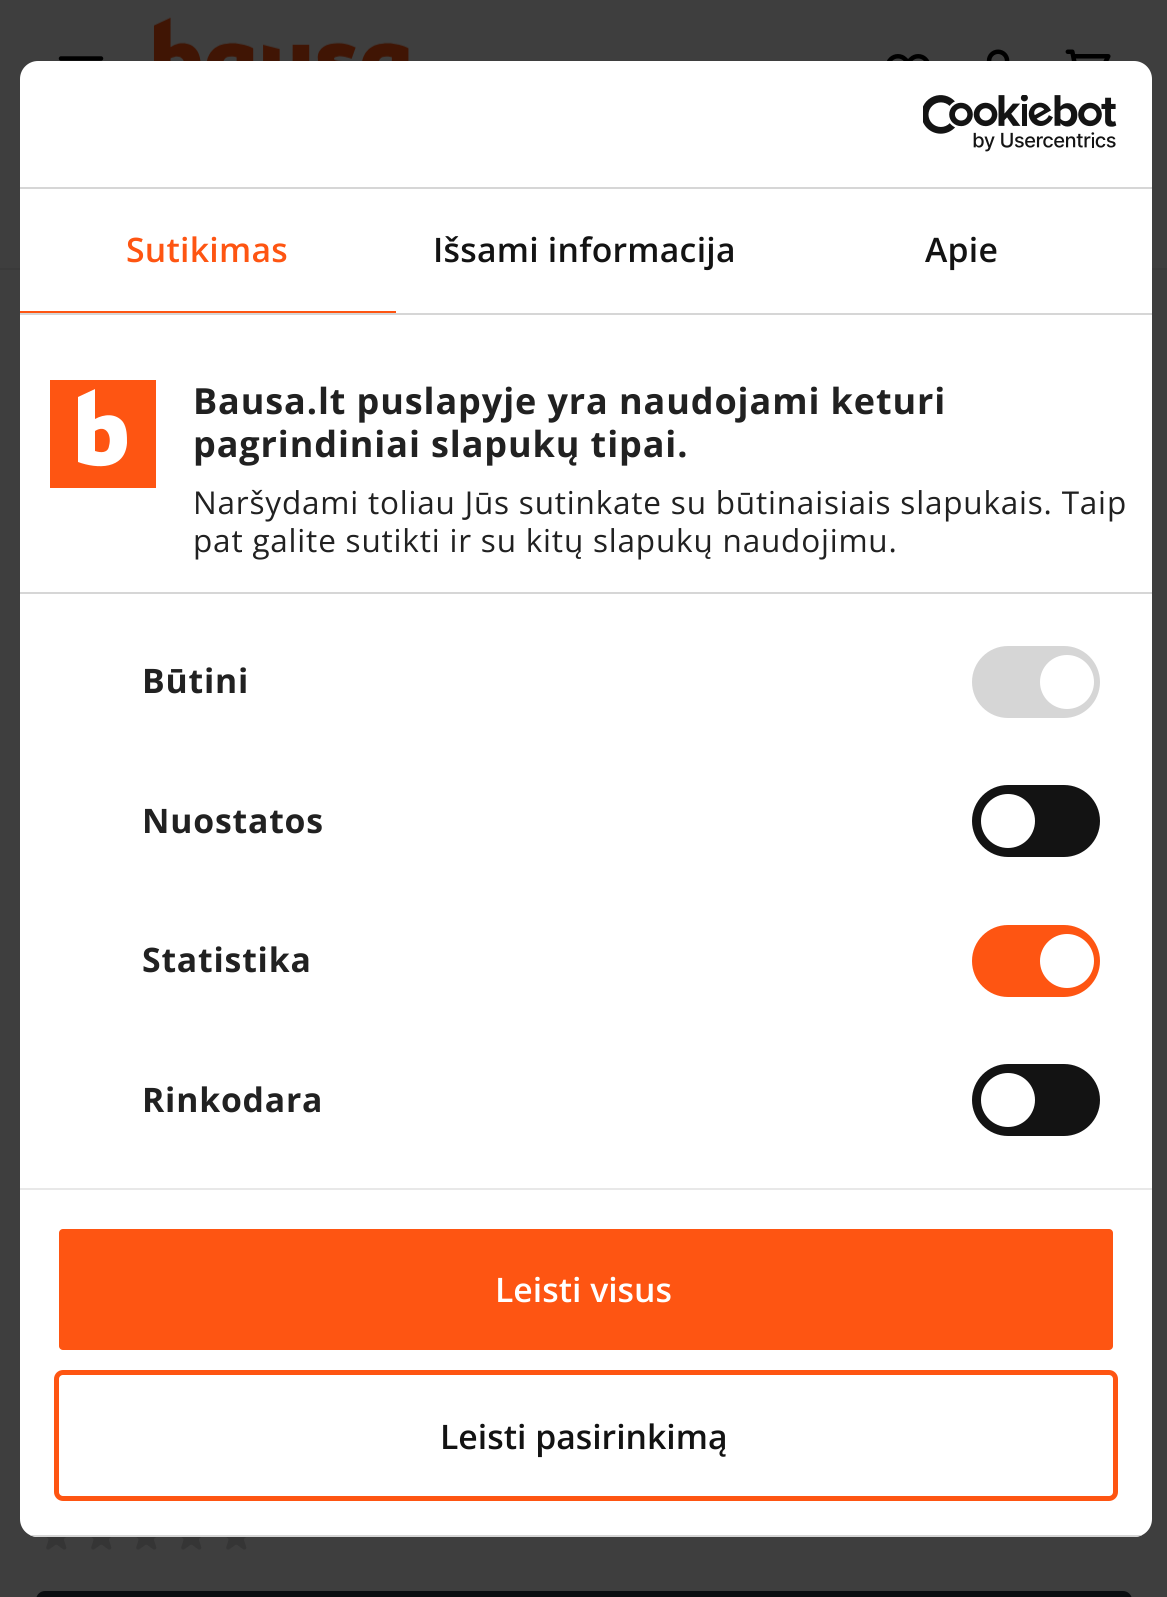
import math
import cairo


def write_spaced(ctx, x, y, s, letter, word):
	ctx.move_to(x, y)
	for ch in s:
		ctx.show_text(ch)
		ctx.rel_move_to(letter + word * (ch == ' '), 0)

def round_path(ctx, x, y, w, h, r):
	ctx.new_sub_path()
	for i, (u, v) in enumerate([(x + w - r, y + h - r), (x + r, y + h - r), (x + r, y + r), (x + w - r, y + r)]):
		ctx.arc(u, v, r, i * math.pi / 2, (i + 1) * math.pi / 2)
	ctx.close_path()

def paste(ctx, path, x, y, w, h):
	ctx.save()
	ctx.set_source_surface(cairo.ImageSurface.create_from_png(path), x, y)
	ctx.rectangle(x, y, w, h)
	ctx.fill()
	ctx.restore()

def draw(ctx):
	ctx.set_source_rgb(0.243, 0.243, 0.243)
	ctx.paint()
	ctx.set_source_rgb(0.227, 0.227, 0.227)
	ctx.rectangle(0, 268, 1167, 2)
	ctx.fill()
	ctx.new_path()
	ctx.move_to(61, 58.5)
	ctx.line_to(101, 58.5)
	ctx.set_source_rgb(0, 0, 0)
	ctx.set_line_width(4.5)
	ctx.set_line_cap(cairo.LINE_CAP_ROUND)
	ctx.set_line_join(cairo.LINE_JOIN_ROUND)
	ctx.stroke()
	paste(ctx, 'media/1.png', 153, 17, 256, 44)
	paste(ctx, 'media/2.png', 887, 54, 43, 7)
	paste(ctx, 'media/3.png', 986, 49, 24, 12)
	paste(ctx, 'media/4.png', 1065, 49, 46, 12)
	paste(ctx, 'media/5.png', 46, 1537, 21, 13)
	paste(ctx, 'media/5.png', 91, 1537, 21, 13)
	paste(ctx, 'media/5.png', 136, 1537, 21, 13)
	paste(ctx, 'media/5.png', 181, 1537, 21, 13)
	paste(ctx, 'media/5.png', 226, 1537, 21, 13)
	ctx.set_source_rgb(0.043, 0.051, 0.063)
	round_path(ctx, 36, 1591, 1096, 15, 9)
	ctx.fill()
	ctx.set_source_rgb(1, 1, 1)
	round_path(ctx, 20, 61, 1132, 1476, 18)
	ctx.fill()
	ctx.set_source_rgb(0.839, 0.839, 0.839)
	ctx.rectangle(20, 187, 1132, 2)
	ctx.fill()
	paste(ctx, 'media/6.png', 923, 95, 194, 57)
	ctx.rectangle(20, 313, 1132, 2)
	ctx.fill()
	ctx.set_source_rgb(0.996, 0.333, 0.071)
	ctx.rectangle(20, 311, 376, 2)
	ctx.fill()
	ctx.select_font_face('Open Sans SemiBold')
	ctx.set_font_size(33.75)
	write_spaced(ctx, 126, 262, 'Sutikimas', 0.25, 0)
	ctx.set_source_rgb(0.078, 0.078, 0.078)
	write_spaced(ctx, 433, 262, 'Išsami informacija', 0.25, 0)
	write_spaced(ctx, 925, 262, 'Apie', 0.25, 0)
	ctx.set_source_rgb(0.839, 0.839, 0.839)
	ctx.rectangle(20, 592, 1132, 2)
	ctx.fill()
	ctx.set_source_rgb(0.996, 0.333, 0.071)
	ctx.rectangle(50, 380, 106, 108)
	ctx.fill()
	ctx.set_source_rgb(1, 1, 1)
	ctx.set_fill_rule(cairo.FILL_RULE_EVEN_ODD)
	ctx.new_path()
	ctx.move_to(123, 422)
	ctx.curve_to(116, 413, 104, 414, 95, 419)
	ctx.line_to(95, 389)
	ctx.line_to(78, 397)
	ctx.line_to(78, 462)
	ctx.curve_to(97, 469, 125, 470, 127, 443)
	ctx.curve_to(127, 436, 127, 428, 123, 422)
	ctx.close_path()
	ctx.move_to(109, 446)
	ctx.curve_to(108, 453, 101, 453, 95, 451)
	ctx.line_to(95, 431)
	ctx.curve_to(106, 424, 112, 435, 109, 446)
	ctx.close_path()
	ctx.fill()
	ctx.select_font_face('Open Sans', cairo.FONT_SLANT_NORMAL, cairo.FONT_WEIGHT_BOLD)
	ctx.set_font_size(36)
	ctx.set_source_rgb(0.129, 0.129, 0.129)
	write_spaced(ctx, 193, 414, 'Bausa.lt puslapyje yra naudojami keturi', 0.9, 0)
	write_spaced(ctx, 193, 457, 'pagrindiniai slapukų tipai.', 0.9, 0)
	ctx.select_font_face('Open Sans')
	ctx.set_font_size(31.5)
	write_spaced(ctx, 193, 514, 'Naršydami toliau Jūs sutinkate su būtinaisiais slapukais. Taip', 0.8, 0)
	write_spaced(ctx, 193, 552, 'pat galite sutikti ir su kitų slapukų naudojimu.', 0.8, 0)
	ctx.set_source_rgb(0.91, 0.91, 0.91)
	ctx.rectangle(20, 1188, 1132, 2)
	ctx.fill()
	ctx.select_font_face('Open Sans', cairo.FONT_SLANT_NORMAL, cairo.FONT_WEIGHT_BOLD)
	ctx.set_font_size(33.75)
	ctx.set_source_rgb(0.129, 0.129, 0.129)
	write_spaced(ctx, 142, 693, 'Būtini', 0.8, 0)
	ctx.set_source_rgb(0.839, 0.839, 0.839)
	round_path(ctx, 972, 646, 128, 72, 36)
	ctx.fill()
	ctx.set_source_rgb(1, 1, 1)
	ctx.arc(1067, 682, 27, 0, 2 * math.pi)
	ctx.fill()
	ctx.set_source_rgb(0.129, 0.129, 0.129)
	write_spaced(ctx, 142, 833, 'Nuostatos', 0.8, 0)
	ctx.set_source_rgb(0.078, 0.078, 0.078)
	round_path(ctx, 972, 785, 128, 72, 36)
	ctx.fill()
	ctx.set_source_rgb(1, 1, 1)
	ctx.arc(1008, 821, 27, 0, 2 * math.pi)
	ctx.fill()
	ctx.set_source_rgb(0.129, 0.129, 0.129)
	write_spaced(ctx, 142, 972, 'Statistika', 0.8, 0)
	ctx.set_source_rgb(0.996, 0.333, 0.071)
	round_path(ctx, 972, 925, 128, 72, 36)
	ctx.fill()
	ctx.set_source_rgb(1, 1, 1)
	ctx.arc(1067, 961, 27, 0, 2 * math.pi)
	ctx.fill()
	ctx.set_source_rgb(0.129, 0.129, 0.129)
	write_spaced(ctx, 142, 1112, 'Rinkodara', 0.8, 0)
	ctx.set_source_rgb(0.078, 0.078, 0.078)
	round_path(ctx, 972, 1064, 128, 72, 36)
	ctx.fill()
	ctx.set_source_rgb(1, 1, 1)
	ctx.arc(1008, 1100, 27, 0, 2 * math.pi)
	ctx.fill()
	ctx.save()
	ctx.set_fill_rule(cairo.FILL_RULE_WINDING)
	round_path(ctx, 20, 61, 1132, 1476, 18)
	ctx.clip()
	ctx.set_source_rgb(0.839, 0.839, 0.839)
	ctx.rectangle(30, 1535, 1112, 2)
	ctx.fill()
	ctx.restore()
	ctx.set_source_rgb(0.996, 0.333, 0.071)
	round_path(ctx, 56.5, 1226.5, 1059, 126, 6.5)
	ctx.fill_preserve()
	ctx.set_source_rgb(1, 1, 1)
	ctx.set_line_width(5)
	ctx.set_line_cap(cairo.LINE_CAP_BUTT)
	ctx.set_line_join(cairo.LINE_JOIN_MITER)
	ctx.stroke()
	ctx.select_font_face('Open Sans SemiBold')
	ctx.move_to(495, 1302)
	ctx.show_text('Leisti visus')
	round_path(ctx, 56.5, 1372.5, 1059, 126, 6.5)
	ctx.set_source_rgb(0.996, 0.333, 0.071)
	ctx.stroke()
	ctx.set_source_rgb(0.078, 0.078, 0.078)
	ctx.move_to(440, 1449)
	ctx.show_text('Leisti pasirinkimą')


surface = cairo.ImageSurface(cairo.FORMAT_RGB24, 1167, 1597)
ctx = cairo.Context(surface)
options = cairo.FontOptions()
options.set_hint_metrics(cairo.HINT_METRICS_OFF)
options.set_hint_style(cairo.HINT_STYLE_NONE)
ctx.set_font_options(options)
ctx.set_miter_limit(4)
draw(ctx)
surface.write_to_png('image.png')
